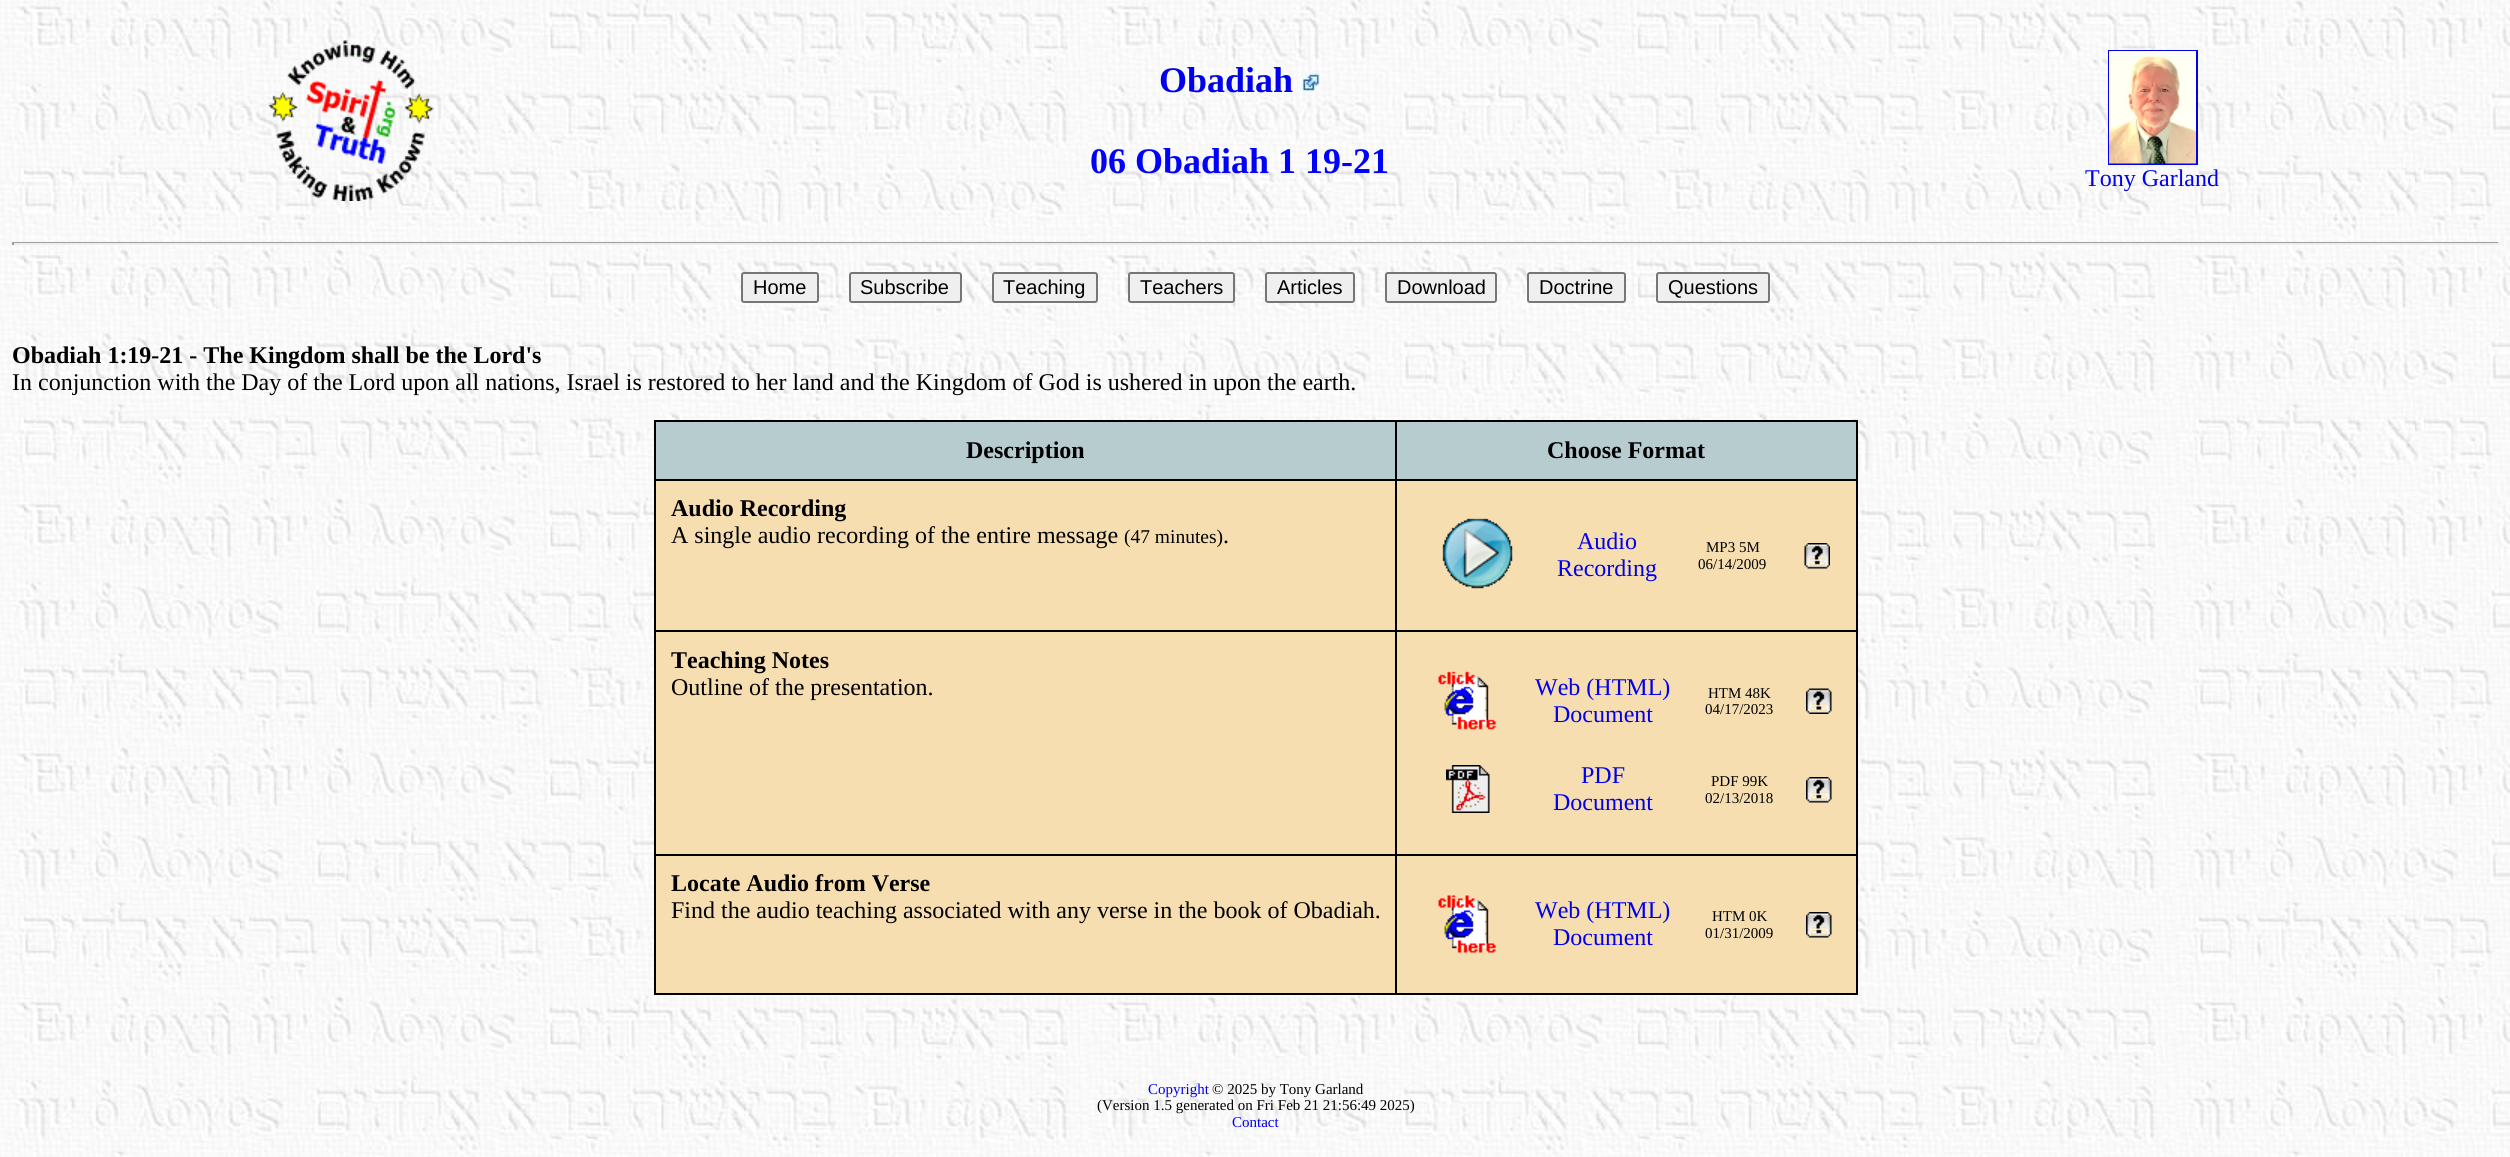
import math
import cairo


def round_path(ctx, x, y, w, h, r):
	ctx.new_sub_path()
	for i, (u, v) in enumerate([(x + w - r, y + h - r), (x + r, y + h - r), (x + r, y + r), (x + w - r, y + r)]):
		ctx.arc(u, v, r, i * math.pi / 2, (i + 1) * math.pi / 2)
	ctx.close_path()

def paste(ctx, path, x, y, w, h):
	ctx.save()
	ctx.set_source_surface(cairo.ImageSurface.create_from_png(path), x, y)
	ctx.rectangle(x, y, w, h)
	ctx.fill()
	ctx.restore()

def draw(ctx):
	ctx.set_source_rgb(1, 1, 1)
	ctx.paint()
	paste(ctx, 'media/1.png', 0, 0, 2510, 1157)
	paste(ctx, 'media/2.png', 268, 40, 166, 161)
	ctx.select_font_face('Liberation Serif', cairo.FONT_SLANT_NORMAL, cairo.FONT_WEIGHT_BOLD)
	ctx.set_font_size(36)
	ctx.set_source_rgb(0, 0, 0.933)
	ctx.move_to(1159, 92)
	ctx.show_text('Obadiah')
	paste(ctx, 'media/3.png', 1302, 73, 18, 19)
	ctx.set_source_rgb(0, 0, 1)
	ctx.move_to(1090, 173)
	ctx.show_text('06 Obadiah 1 19-21')
	ctx.rectangle(2109, 51, 88, 113)
	ctx.set_source_rgb(0, 0, 0.933)
	ctx.stroke()
	paste(ctx, 'media/4.png', 2109, 51, 87, 113)
	ctx.select_font_face('Liberation Serif')
	ctx.set_font_size(24)
	ctx.move_to(2085, 186)
	ctx.show_text('Tony Garland')
	ctx.set_source_rgb(0.624, 0.624, 0.624)
	ctx.rectangle(12, 242, 2487, 1)
	ctx.fill()
	ctx.set_source_rgb(0.933, 0.933, 0.933)
	ctx.rectangle(2498, 242, 2, 3)
	ctx.rectangle(12, 243, 2487, 2)
	ctx.fill()
	ctx.set_source_rgb(0.624, 0.624, 0.624)
	ctx.rectangle(12, 242, 2, 3)
	ctx.fill()
	ctx.set_source_rgb(0.937, 0.937, 0.937)
	round_path(ctx, 742, 273, 76, 29, 2)
	ctx.fill_preserve()
	ctx.set_source_rgb(0.463, 0.463, 0.463)
	ctx.stroke()
	ctx.select_font_face('Liberation Sans')
	ctx.set_font_size(20)
	ctx.set_source_rgb(0, 0, 0)
	ctx.move_to(753, 294)
	ctx.show_text('Home')
	ctx.set_source_rgb(0.937, 0.937, 0.937)
	round_path(ctx, 850, 273, 111, 29, 2)
	ctx.fill_preserve()
	ctx.set_source_rgb(0.463, 0.463, 0.463)
	ctx.stroke()
	ctx.set_source_rgb(0, 0, 0)
	ctx.move_to(860, 294)
	ctx.show_text('Subscribe')
	ctx.set_source_rgb(0.937, 0.937, 0.937)
	round_path(ctx, 993, 273, 104, 29, 2)
	ctx.fill_preserve()
	ctx.set_source_rgb(0.463, 0.463, 0.463)
	ctx.stroke()
	ctx.set_source_rgb(0, 0, 0)
	ctx.move_to(1003, 294)
	ctx.show_text('Teaching')
	ctx.set_source_rgb(0.937, 0.937, 0.937)
	round_path(ctx, 1129, 273, 105, 29, 2)
	ctx.fill_preserve()
	ctx.set_source_rgb(0.463, 0.463, 0.463)
	ctx.stroke()
	ctx.set_source_rgb(0, 0, 0)
	ctx.move_to(1140, 294)
	ctx.show_text('Teachers')
	ctx.set_source_rgb(0.937, 0.937, 0.937)
	round_path(ctx, 1266, 273, 88, 29, 2)
	ctx.fill_preserve()
	ctx.set_source_rgb(0.463, 0.463, 0.463)
	ctx.stroke()
	ctx.set_source_rgb(0, 0, 0)
	ctx.move_to(1277, 294)
	ctx.show_text('Articles')
	ctx.set_source_rgb(0.937, 0.937, 0.937)
	round_path(ctx, 1386, 273, 110, 29, 2)
	ctx.fill_preserve()
	ctx.set_source_rgb(0.463, 0.463, 0.463)
	ctx.stroke()
	ctx.set_source_rgb(0, 0, 0)
	ctx.move_to(1397, 294)
	ctx.show_text('Download')
	ctx.set_source_rgb(0.937, 0.937, 0.937)
	round_path(ctx, 1528, 273, 97, 29, 2)
	ctx.fill_preserve()
	ctx.set_source_rgb(0.463, 0.463, 0.463)
	ctx.stroke()
	ctx.set_source_rgb(0, 0, 0)
	ctx.move_to(1539, 294)
	ctx.show_text('Doctrine')
	ctx.set_source_rgb(0.937, 0.937, 0.937)
	round_path(ctx, 1657, 273, 112, 29, 2)
	ctx.fill_preserve()
	ctx.set_source_rgb(0.463, 0.463, 0.463)
	ctx.stroke()
	ctx.set_source_rgb(0, 0, 0)
	ctx.move_to(1668, 294)
	ctx.show_text('Questions')
	ctx.select_font_face('Liberation Serif', cairo.FONT_SLANT_NORMAL, cairo.FONT_WEIGHT_BOLD)
	ctx.set_font_size(24)
	ctx.move_to(12, 363)
	ctx.show_text('Obadiah 1:19-21 - The Kingdom shall be the Lord\'s')
	ctx.select_font_face('Liberation Serif')
	ctx.move_to(12, 390)
	ctx.show_text('In conjunction with the Day of the Lord upon all nations, Israel is restored to her land and the Kingdom of God is ushered in upon the earth.')
	ctx.set_source_rgb(0.961, 0.871, 0.69)
	ctx.rectangle(656, 481, 1200, 512)
	ctx.fill()
	ctx.set_source_rgb(0, 0, 0)
	ctx.rectangle(654, 420, 1203, 2)
	ctx.rectangle(1856, 420, 2, 575)
	ctx.rectangle(654, 993, 1203, 2)
	ctx.rectangle(654, 420, 2, 575)
	ctx.fill()
	ctx.set_source_rgb(0.718, 0.8, 0.812)
	ctx.rectangle(656, 422, 1200, 57)
	ctx.fill()
	ctx.select_font_face('Liberation Serif', cairo.FONT_SLANT_NORMAL, cairo.FONT_WEIGHT_BOLD)
	ctx.set_source_rgb(0, 0, 0)
	ctx.move_to(966, 458)
	ctx.show_text('Description')
	ctx.rectangle(1395, 479, 462, 2)
	ctx.rectangle(1395, 630, 462, 2)
	ctx.rectangle(1395, 854, 462, 2)
	ctx.rectangle(1395, 854, 2, 141)
	ctx.rectangle(654, 854, 743, 2)
	ctx.rectangle(1395, 630, 2, 225)
	ctx.rectangle(654, 630, 743, 2)
	ctx.rectangle(1395, 479, 2, 153)
	ctx.rectangle(654, 479, 743, 2)
	ctx.rectangle(1395, 420, 2, 60)
	ctx.fill()
	ctx.move_to(1547, 458)
	ctx.show_text('Choose Format')
	ctx.move_to(671, 516)
	ctx.show_text('Audio Recording')
	ctx.select_font_face('Liberation Serif')
	ctx.move_to(671, 543)
	ctx.show_text('A single audio recording of the entire message')
	ctx.set_font_size(19.5)
	ctx.move_to(1124, 543)
	ctx.show_text('(47 minutes)')
	ctx.set_font_size(24)
	ctx.move_to(1223, 543)
	ctx.show_text('.')
	paste(ctx, 'media/5.png', 1442, 518, 71, 71)
	ctx.set_source_rgb(0, 0, 0.933)
	ctx.move_to(1577, 549)
	ctx.show_text('Audio')
	ctx.move_to(1557, 576)
	ctx.show_text('Recording')
	ctx.set_font_size(15)
	ctx.set_source_rgb(0, 0, 0)
	ctx.move_to(1706, 552)
	ctx.show_text('MP3 5M')
	ctx.move_to(1698, 569)
	ctx.show_text('06/14/2009')
	paste(ctx, 'media/6.png', 1804, 543, 26, 26)
	ctx.select_font_face('Liberation Serif', cairo.FONT_SLANT_NORMAL, cairo.FONT_WEIGHT_BOLD)
	ctx.set_font_size(24)
	ctx.move_to(671, 668)
	ctx.show_text('Teaching Notes')
	ctx.select_font_face('Liberation Serif')
	ctx.move_to(671, 695)
	ctx.show_text('Outline of the presentation.')
	paste(ctx, 'media/7.png', 1438, 671, 58, 59)
	ctx.set_source_rgb(0, 0, 0.933)
	ctx.move_to(1535, 695)
	ctx.show_text('Web (HTML)')
	ctx.move_to(1553, 722)
	ctx.show_text('Document')
	ctx.set_font_size(15)
	ctx.set_source_rgb(0, 0, 0)
	ctx.move_to(1708, 698)
	ctx.show_text('HTM 48K')
	ctx.move_to(1705, 714)
	ctx.show_text('04/17/2023')
	paste(ctx, 'media/8.png', 1806, 688, 26, 26)
	paste(ctx, 'media/9.png', 1446, 765, 44, 48)
	ctx.set_font_size(24)
	ctx.set_source_rgb(0, 0, 0.933)
	ctx.move_to(1581, 783)
	ctx.show_text('PDF')
	ctx.move_to(1553, 810)
	ctx.show_text('Document')
	ctx.set_font_size(15)
	ctx.set_source_rgb(0, 0, 0)
	ctx.move_to(1711, 786)
	ctx.show_text('PDF 99K')
	ctx.move_to(1705, 803)
	ctx.show_text('02/13/2018')
	paste(ctx, 'media/10.png', 1806, 777, 26, 26)
	ctx.select_font_face('Liberation Serif', cairo.FONT_SLANT_NORMAL, cairo.FONT_WEIGHT_BOLD)
	ctx.set_font_size(24)
	ctx.move_to(671, 891)
	ctx.show_text('Locate Audio from Verse')
	ctx.select_font_face('Liberation Serif')
	ctx.move_to(671, 918)
	ctx.show_text('Find the audio teaching associated with any verse in the book of Obadiah.')
	paste(ctx, 'media/11.png', 1438, 895, 58, 58)
	ctx.set_source_rgb(0, 0, 0.933)
	ctx.move_to(1535, 918)
	ctx.show_text('Web (HTML)')
	ctx.move_to(1553, 945)
	ctx.show_text('Document')
	ctx.set_font_size(15)
	ctx.set_source_rgb(0, 0, 0)
	ctx.move_to(1712, 921)
	ctx.show_text('HTM 0K')
	ctx.move_to(1705, 938)
	ctx.show_text('01/31/2009')
	paste(ctx, 'media/10.png', 1806, 912, 26, 26)
	ctx.set_source_rgb(0, 0, 0.933)
	ctx.move_to(1148, 1094)
	ctx.show_text('Copyright')
	ctx.set_source_rgb(0, 0, 0)
	ctx.move_to(1212, 1094)
	ctx.show_text('© 2025 by Tony Garland')
	ctx.move_to(1097, 1110)
	ctx.show_text('(Version 1.5 generated on Fri Feb 21 21:56:49 2025)')
	ctx.set_source_rgb(0, 0, 0.933)
	ctx.move_to(1232, 1127)
	ctx.show_text('Contact')


surface = cairo.ImageSurface(cairo.FORMAT_RGB24, 2510, 1157)
ctx = cairo.Context(surface)
options = cairo.FontOptions()
options.set_hint_metrics(cairo.HINT_METRICS_OFF)
options.set_hint_style(cairo.HINT_STYLE_NONE)
ctx.set_font_options(options)
ctx.set_miter_limit(4)
draw(ctx)
surface.write_to_png('image.png')
